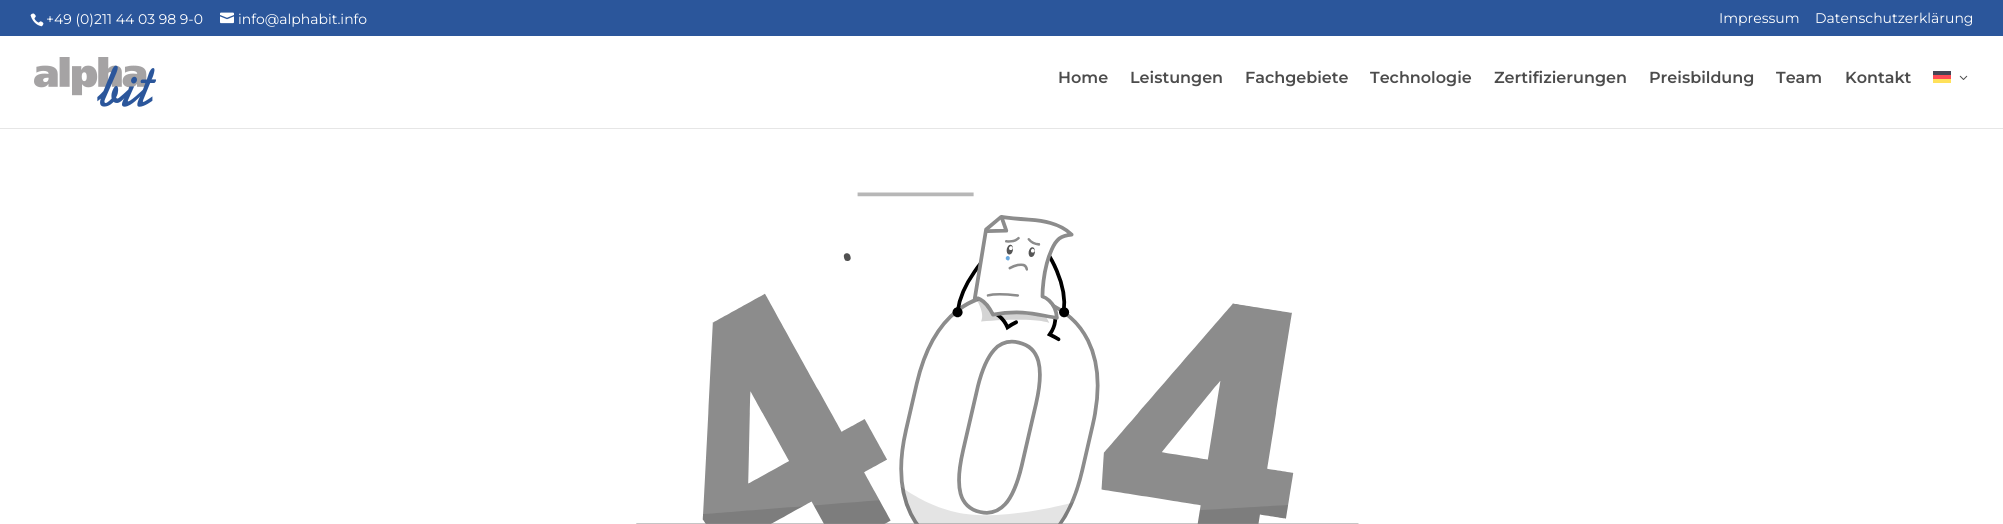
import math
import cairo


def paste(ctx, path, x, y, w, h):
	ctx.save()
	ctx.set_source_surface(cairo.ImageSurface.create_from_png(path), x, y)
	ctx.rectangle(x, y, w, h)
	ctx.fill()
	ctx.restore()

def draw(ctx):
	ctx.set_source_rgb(0.169, 0.337, 0.608)
	ctx.paint()
	paste(ctx, 'media/1.png', 30, 13, 14, 14)
	ctx.select_font_face('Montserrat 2 Thin')
	ctx.set_font_size(14)
	ctx.set_source_rgb(1, 1, 1)
	ctx.move_to(46, 24)
	ctx.show_text('+49 (0)211 44 03 98 9-0')
	paste(ctx, 'media/2.png', 220, 12, 14, 12)
	for x, y, s in [
		(238, 24, 'info@alphabit.info'),
		(1719, 23, 'Impressum'),
		(1815, 23, 'Datenschutzerklärung'),
	]:
		ctx.move_to(x, y)
		ctx.show_text(s)
	ctx.set_source_rgb(0.902, 0.902, 0.902)
	ctx.rectangle(0, 128, 2003, 1)
	ctx.fill()
	ctx.set_source_rgb(1, 1, 1)
	ctx.rectangle(0, 36, 2003, 92)
	ctx.fill()
	paste(ctx, 'media/3.png', 34, 57, 122, 50)
	ctx.select_font_face('Montserrat Thin')
	ctx.set_font_size(16)
	ctx.set_source_rgb(0.298, 0.298, 0.298)
	for x, y, s in [
		(1058, 83, 'Home'),
		(1130, 83, 'Leistungen'),
		(1245, 83, 'Fachgebiete'),
		(1370, 83, 'Technologie'),
		(1494, 83, 'Zertifizierungen'),
		(1649, 83, 'Preisbildung'),
		(1776, 83, 'Team'),
		(1845, 83, 'Kontakt'),
	]:
		ctx.move_to(x, y)
		ctx.show_text(s)
	ctx.set_source_rgb(0.275, 0.275, 0.333)
	ctx.rectangle(1933, 71, 18, 4)
	ctx.fill()
	ctx.set_source_rgb(1, 0.294, 0.333)
	ctx.rectangle(1933, 75, 18, 4)
	ctx.fill()
	paste(ctx, 'media/4.png', 1959, 75, 9, 5)
	ctx.set_source_rgb(1, 0.882, 0.353)
	ctx.rectangle(1933, 79, 18, 4)
	ctx.fill()
	ctx.set_source_rgb(1, 1, 1)
	ctx.rectangle(0, 129, 2003, 395)
	ctx.fill()
	paste(ctx, 'media/5.png', 636, 192, 723, 332)


surface = cairo.ImageSurface(cairo.FORMAT_RGB24, 2003, 524)
ctx = cairo.Context(surface)
options = cairo.FontOptions()
options.set_hint_metrics(cairo.HINT_METRICS_OFF)
options.set_hint_style(cairo.HINT_STYLE_NONE)
ctx.set_font_options(options)
ctx.set_miter_limit(4)
draw(ctx)
surface.write_to_png('image.png')
